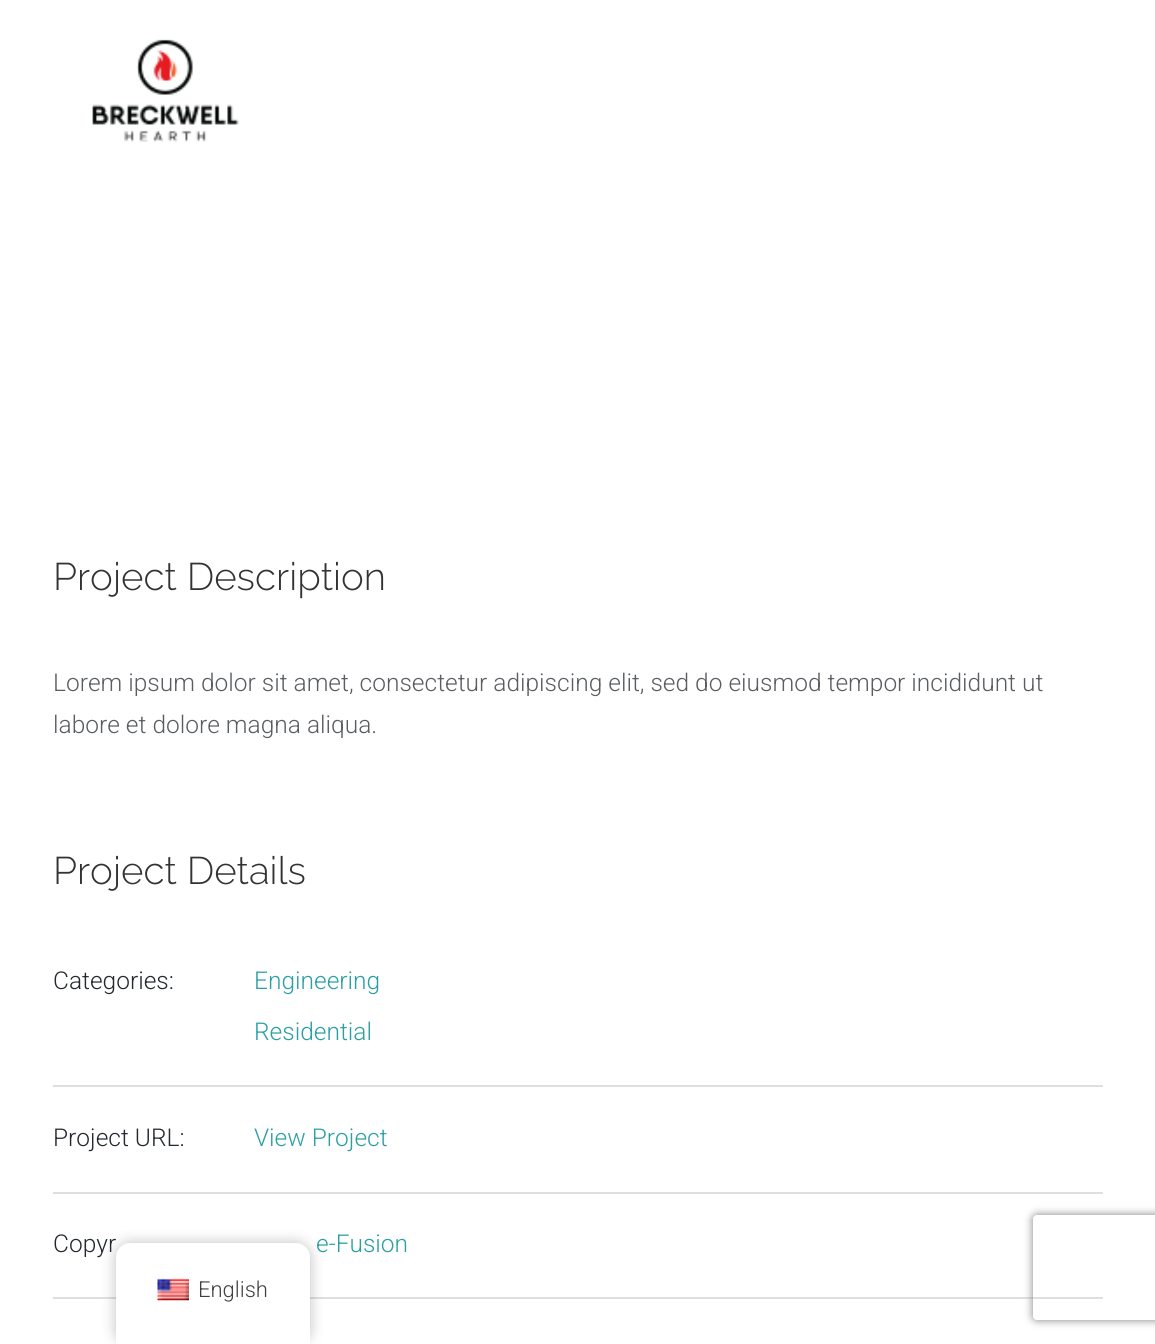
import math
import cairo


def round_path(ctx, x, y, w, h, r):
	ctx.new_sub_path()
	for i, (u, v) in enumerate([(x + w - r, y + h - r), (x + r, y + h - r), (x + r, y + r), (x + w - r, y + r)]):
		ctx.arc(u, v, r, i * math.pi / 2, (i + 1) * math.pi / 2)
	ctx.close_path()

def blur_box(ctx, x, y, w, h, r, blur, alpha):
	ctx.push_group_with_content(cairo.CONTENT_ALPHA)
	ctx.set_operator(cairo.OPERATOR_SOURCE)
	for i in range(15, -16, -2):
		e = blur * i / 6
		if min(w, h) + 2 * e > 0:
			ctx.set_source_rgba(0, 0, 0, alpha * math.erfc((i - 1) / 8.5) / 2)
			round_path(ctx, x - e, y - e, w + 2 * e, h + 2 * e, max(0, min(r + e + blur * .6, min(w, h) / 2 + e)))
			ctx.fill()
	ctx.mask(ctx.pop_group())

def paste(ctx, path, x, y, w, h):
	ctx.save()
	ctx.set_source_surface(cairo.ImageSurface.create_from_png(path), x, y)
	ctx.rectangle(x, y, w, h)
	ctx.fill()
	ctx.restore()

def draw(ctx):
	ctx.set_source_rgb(1, 1, 1)
	ctx.paint()
	paste(ctx, 'media/1.png', 92, 39, 147, 103)
	ctx.select_font_face('Raleway Thin')
	ctx.set_font_size(38.5)
	ctx.set_source_rgb(0.2, 0.2, 0.2)
	ctx.move_to(53, 590)
	ctx.show_text('Project Description')
	ctx.select_font_face('Roboto Light')
	ctx.set_font_size(24.5)
	ctx.set_source_rgb(0.353, 0.365, 0.384)
	ctx.move_to(53, 691)
	ctx.show_text('Lorem ipsum dolor sit amet, consectetur adipiscing elit, sed do eiusmod tempor incididunt ut')
	ctx.move_to(53, 733)
	ctx.show_text('labore et dolore magna aliqua.')
	ctx.select_font_face('Raleway Thin')
	ctx.set_font_size(38.5)
	ctx.set_source_rgb(0.2, 0.2, 0.2)
	ctx.move_to(53, 884)
	ctx.show_text('Project Details')
	ctx.set_source_rgb(0.878, 0.871, 0.871)
	ctx.rectangle(53, 1085, 1050, 2)
	ctx.fill()
	ctx.select_font_face('Roboto Light')
	ctx.set_font_size(24.5)
	ctx.set_source_rgb(0.141, 0.161, 0.188)
	ctx.move_to(53, 989)
	ctx.show_text('Categories:')
	ctx.set_source_rgb(0.169, 0.627, 0.639)
	ctx.move_to(254, 989)
	ctx.show_text('Engineering')
	ctx.move_to(254, 1040)
	ctx.show_text('Residential')
	ctx.set_source_rgb(0.878, 0.871, 0.871)
	ctx.rectangle(53, 1192, 1050, 2)
	ctx.fill()
	ctx.set_source_rgb(0.141, 0.161, 0.188)
	ctx.move_to(53, 1146)
	ctx.show_text('Project URL:')
	ctx.set_source_rgb(0.169, 0.627, 0.639)
	ctx.move_to(254, 1146)
	ctx.show_text('View Project')
	ctx.set_source_rgb(0.878, 0.871, 0.871)
	ctx.rectangle(53, 1297, 1050, 2)
	ctx.fill()
	ctx.set_source_rgb(0.141, 0.161, 0.188)
	ctx.move_to(53, 1252)
	ctx.show_text('Copyr')
	ctx.set_source_rgb(0.169, 0.627, 0.639)
	ctx.move_to(316, 1252)
	ctx.show_text('e-Fusion')
	ctx.save()
	ctx.set_fill_rule(cairo.FILL_RULE_EVEN_ODD)
	ctx.new_path()
	ctx.move_to(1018, 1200)
	ctx.line_to(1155, 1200)
	ctx.line_to(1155, 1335)
	ctx.line_to(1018, 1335)
	ctx.close_path()
	ctx.move_to(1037, 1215)
	ctx.line_to(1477, 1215)
	ctx.curve_to(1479, 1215, 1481, 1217, 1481, 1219)
	ctx.line_to(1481, 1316)
	ctx.curve_to(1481, 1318, 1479, 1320, 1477, 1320)
	ctx.line_to(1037, 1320)
	ctx.curve_to(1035, 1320, 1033, 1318, 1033, 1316)
	ctx.line_to(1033, 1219)
	ctx.curve_to(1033, 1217, 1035, 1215, 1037, 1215)
	ctx.close_path()
	ctx.clip()
	ctx.set_source_rgb(0.502, 0.502, 0.502)
	blur_box(ctx, 1033, 1215, 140, 105, 4, 4.5, 1)
	ctx.restore()
	ctx.set_source_rgb(0, 0, 0)
	blur_box(ctx, 116, 1243, 194, 101, 14, 7, 0.25)
	ctx.set_source_rgb(1, 1, 1)
	ctx.new_path()
	ctx.move_to(130, 1243)
	ctx.line_to(296, 1243)
	ctx.curve_to(303.5, 1243, 310, 1249.5, 310, 1257)
	ctx.line_to(310, 1344)
	ctx.line_to(116, 1344)
	ctx.line_to(116, 1257)
	ctx.curve_to(116, 1249.5, 122.5, 1243, 130, 1243)
	ctx.close_path()
	ctx.fill()
	paste(ctx, 'media/2.png', 157, 1278, 32, 23)
	ctx.set_font_size(22)
	ctx.set_source_rgb(0.251, 0.251, 0.251)
	ctx.move_to(198, 1297)
	ctx.show_text('English')


surface = cairo.ImageSurface(cairo.FORMAT_RGB24, 1155, 1344)
ctx = cairo.Context(surface)
options = cairo.FontOptions()
options.set_hint_metrics(cairo.HINT_METRICS_OFF)
options.set_hint_style(cairo.HINT_STYLE_NONE)
ctx.set_font_options(options)
ctx.set_miter_limit(4)
draw(ctx)
surface.write_to_png('image.png')
